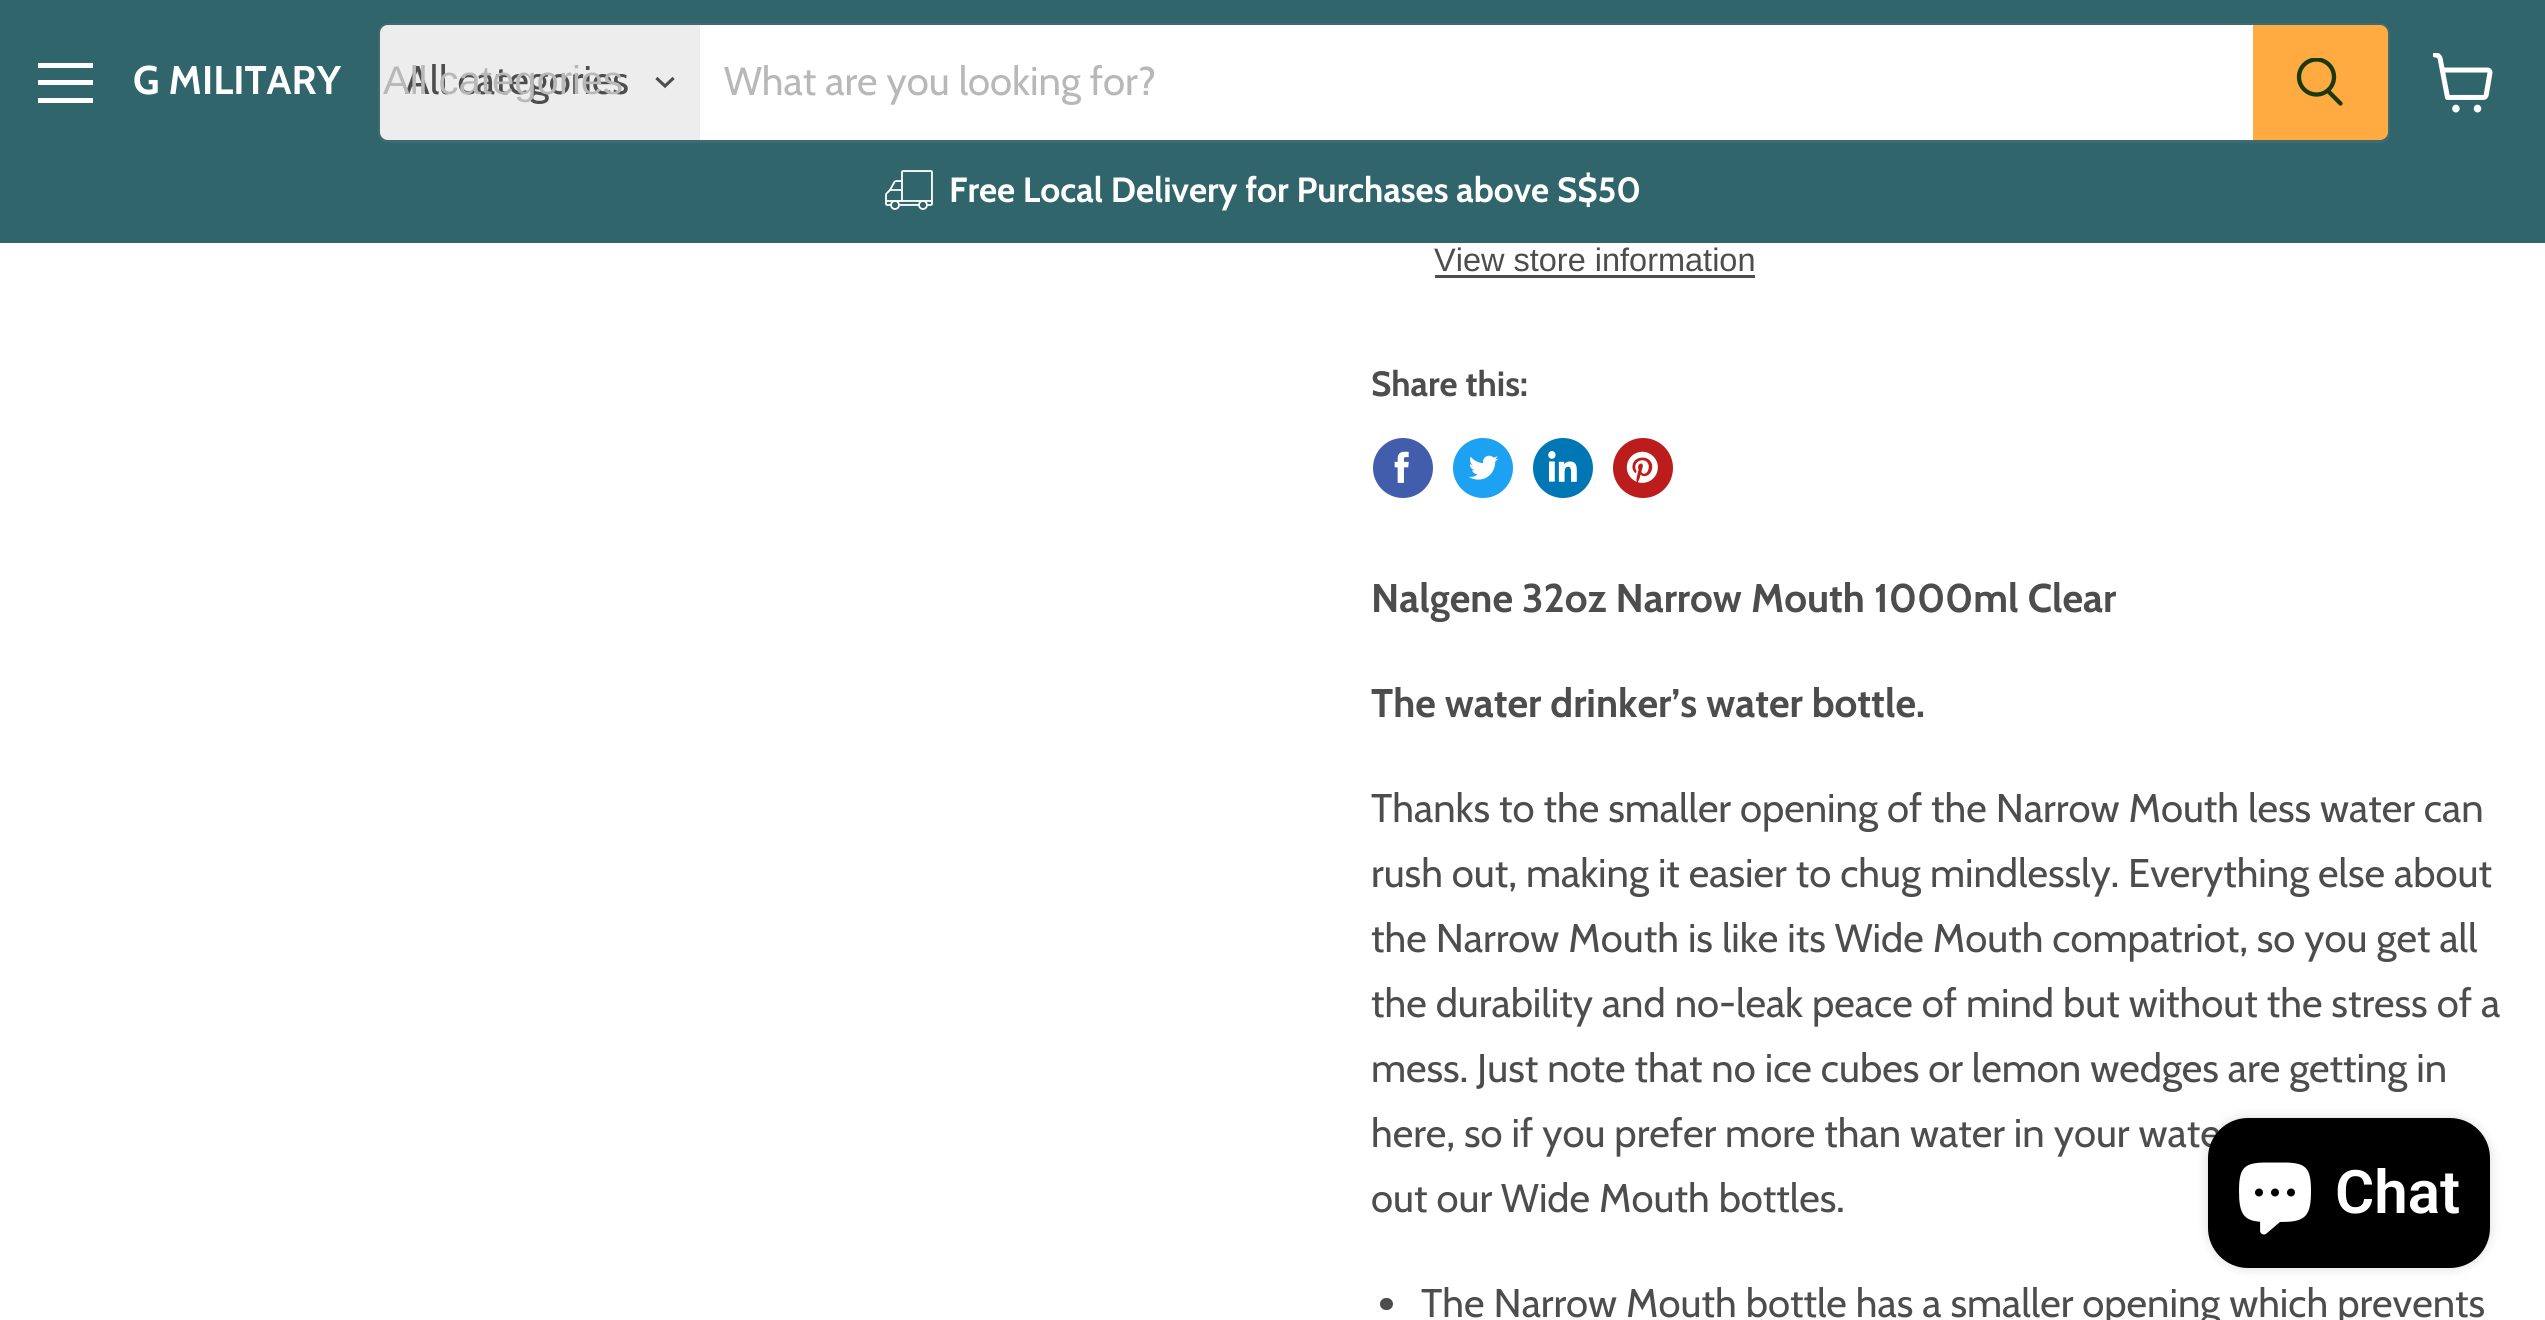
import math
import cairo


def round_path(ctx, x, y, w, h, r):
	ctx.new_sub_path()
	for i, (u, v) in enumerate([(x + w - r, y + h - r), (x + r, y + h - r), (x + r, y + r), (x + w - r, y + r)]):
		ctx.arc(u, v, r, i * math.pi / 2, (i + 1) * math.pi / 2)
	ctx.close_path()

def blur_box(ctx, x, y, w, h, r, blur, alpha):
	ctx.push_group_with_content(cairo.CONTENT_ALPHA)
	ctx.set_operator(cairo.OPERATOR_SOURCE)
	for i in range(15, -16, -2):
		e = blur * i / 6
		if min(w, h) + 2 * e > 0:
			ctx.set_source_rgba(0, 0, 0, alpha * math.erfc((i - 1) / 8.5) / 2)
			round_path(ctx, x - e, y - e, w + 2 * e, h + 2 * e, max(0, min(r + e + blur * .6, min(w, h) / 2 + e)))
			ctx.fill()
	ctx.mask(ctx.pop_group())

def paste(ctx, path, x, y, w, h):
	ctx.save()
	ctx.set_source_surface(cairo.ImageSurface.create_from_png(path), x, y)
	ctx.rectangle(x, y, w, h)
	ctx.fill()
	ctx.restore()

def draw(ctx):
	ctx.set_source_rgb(1, 1, 1)
	ctx.paint()
	ctx.set_source_rgb(0.188, 0.396, 0.42)
	ctx.rectangle(0, 0, 2545, 243)
	ctx.fill()
	ctx.set_source_rgb(1, 1, 1)
	ctx.rectangle(38, 63, 55, 5)
	ctx.rectangle(38, 80, 55, 5)
	ctx.rectangle(38, 98, 55, 5)
	ctx.fill()
	ctx.select_font_face('Cabin', cairo.FONT_SLANT_NORMAL, cairo.FONT_WEIGHT_BOLD)
	ctx.set_font_size(40)
	ctx.move_to(133, 94)
	ctx.show_text('G MILITARY')
	round_path(ctx, 379.5, 24.5, 2009, 117, 8.5)
	ctx.set_source_rgba(0.502, 0.502, 0.502, 0.2)
	ctx.set_line_width(3)
	ctx.stroke()
	ctx.set_source_rgb(0.929, 0.929, 0.929)
	ctx.new_path()
	ctx.move_to(388, 25)
	ctx.line_to(700, 25)
	ctx.line_to(700, 140)
	ctx.line_to(388, 140)
	ctx.curve_to(383.5, 140, 380, 136.5, 380, 132)
	ctx.line_to(380, 33)
	ctx.curve_to(380, 28.5, 383.5, 25, 388, 25)
	ctx.close_path()
	ctx.fill()
	ctx.select_font_face('Cabin')
	ctx.set_source_rgb(0.302, 0.302, 0.302)
	ctx.move_to(405, 94)
	ctx.show_text('All categories')
	ctx.select_font_face('Liberation Sans')
	ctx.set_source_rgb(0.722, 0.722, 0.722)
	ctx.move_to(383, 94)
	ctx.show_text('All categories')
	ctx.new_path()
	ctx.move_to(665, 86)
	ctx.line_to(672.5, 79)
	ctx.move_to(665, 86)
	ctx.line_to(657.5, 79)
	ctx.set_source_rgb(0.302, 0.302, 0.302)
	ctx.set_line_width(3.1)
	ctx.set_line_cap(cairo.LINE_CAP_SQUARE)
	ctx.stroke()
	ctx.set_source_rgb(1, 1, 1)
	ctx.rectangle(700, 25, 1553, 115)
	ctx.fill()
	ctx.select_font_face('Cabin')
	ctx.set_source_rgb(0.722, 0.722, 0.722)
	ctx.move_to(724, 95)
	ctx.show_text('What are you looking for?')
	ctx.set_source_rgb(1, 0.671, 0.255)
	ctx.new_path()
	ctx.move_to(2254.5, 26.5)
	ctx.line_to(2380, 26.5)
	ctx.curve_to(2383.5, 26.5, 2386.5, 29.5, 2386.5, 33)
	ctx.line_to(2386.5, 132)
	ctx.curve_to(2386.5, 135.5, 2383.5, 138.5, 2380, 138.5)
	ctx.line_to(2254.5, 138.5)
	ctx.close_path()
	ctx.fill_preserve()
	ctx.set_line_width(3)
	ctx.set_line_cap(cairo.LINE_CAP_BUTT)
	ctx.stroke()
	ctx.new_path()
	ctx.move_to(2340.5, 103.5)
	ctx.line_to(2328.5, 91.5)
	ctx.set_source_rgb(0.102, 0.224, 0.047)
	ctx.set_line_width(4.3)
	ctx.set_line_cap(cairo.LINE_CAP_ROUND)
	ctx.stroke()
	ctx.save()
	ctx.rectangle(2295, 58, 50, 52)
	ctx.clip()
	ctx.arc(2316.5, 77, 17.5, 0, 2 * math.pi)
	ctx.set_line_cap(cairo.LINE_CAP_BUTT)
	ctx.stroke()
	ctx.restore()
	paste(ctx, 'media/1.png', 885, 170, 48, 40)
	ctx.select_font_face('Cabin', cairo.FONT_SLANT_NORMAL, cairo.FONT_WEIGHT_BOLD)
	ctx.set_font_size(35)
	ctx.set_source_rgb(1, 1, 1)
	ctx.move_to(949, 202)
	ctx.show_text('Free Local Delivery for Purchases above S$50')
	paste(ctx, 'media/2.png', 2433, 53, 60, 60)
	ctx.select_font_face('Liberation Sans')
	ctx.set_font_size(32.5)
	ctx.set_source_rgb(0.302, 0.302, 0.302)
	ctx.move_to(1434, 271)
	ctx.show_text('View store information')
	ctx.rectangle(1435, 275, 320, 3)
	ctx.fill()
	ctx.select_font_face('Cabin', cairo.FONT_SLANT_NORMAL, cairo.FONT_WEIGHT_BOLD)
	ctx.set_font_size(35)
	ctx.move_to(1371, 396)
	ctx.show_text('Share this:')
	ctx.set_source_rgb(0.259, 0.365, 0.671)
	ctx.new_path()
	ctx.arc(1403, 468, 30, 0, 2 * math.pi)
	ctx.fill()
	paste(ctx, 'media/3.png', 1394, 451, 15, 32)
	ctx.set_source_rgb(0.114, 0.631, 0.949)
	ctx.arc(1483, 468, 30, 0, 2 * math.pi)
	ctx.fill()
	paste(ctx, 'media/4.png', 1469, 455, 29, 25)
	ctx.set_source_rgb(0, 0.467, 0.71)
	ctx.arc(1563, 468, 30, 0, 2 * math.pi)
	ctx.fill()
	paste(ctx, 'media/5.png', 1548, 451, 29, 31)
	ctx.set_source_rgb(0.741, 0.11, 0.11)
	ctx.arc(1643, 468, 30, 0, 2 * math.pi)
	ctx.fill()
	paste(ctx, 'media/6.png', 1626, 451, 32, 32)
	ctx.set_font_size(40)
	ctx.set_source_rgb(0.302, 0.302, 0.302)
	ctx.move_to(1371, 612)
	ctx.show_text('Nalgene 32oz Narrow Mouth 1000ml Clear')
	ctx.move_to(1371, 717)
	ctx.show_text('The water drinker’s water bottle.')
	ctx.select_font_face('Cabin')
	for x, y, s in [
		(1371, 822, 'Thanks to the smaller opening of the Narrow Mouth less water can'),
		(1371, 887, 'rush out, making it easier to chug mindlessly. Everything else about'),
		(1371, 952, 'the Narrow Mouth is like its Wide Mouth compatriot, so you get all'),
		(1371, 1017, 'the durability and no-leak peace of mind but without the stress of a'),
		(1371, 1082, 'mess. Just note that no ice cubes or lemon wedges are getting in'),
		(1371, 1147, 'here, so if you prefer more than water in your wate'),
		(1371, 1212, 'out our Wide Mouth bottles.'),
	]:
		ctx.move_to(x, y)
		ctx.show_text(s)
	round_path(ctx, 1380, 1298, 13, 12, 6)
	ctx.fill()
	ctx.move_to(1421, 1317)
	ctx.show_text('The Narrow Mouth bottle has a smaller opening which prevents')
	ctx.set_source_rgb(0, 0, 0)
	blur_box(ctx, 2208, 1118, 282, 150, 40, 6, 0.15)
	ctx.set_source_rgb(0, 0, 0)
	round_path(ctx, 2208, 1118, 282, 150, 40)
	ctx.fill()
	paste(ctx, 'media/7.png', 2239, 1162, 72, 73)
	ctx.select_font_face('Roboto SemiBold')
	ctx.set_font_size(60)
	ctx.set_source_rgb(1, 1, 1)
	ctx.move_to(2335, 1213)
	ctx.show_text('Chat')


surface = cairo.ImageSurface(cairo.FORMAT_RGB24, 2545, 1320)
ctx = cairo.Context(surface)
options = cairo.FontOptions()
options.set_hint_metrics(cairo.HINT_METRICS_OFF)
options.set_hint_style(cairo.HINT_STYLE_NONE)
ctx.set_font_options(options)
ctx.set_miter_limit(4)
draw(ctx)
surface.write_to_png('image.png')
